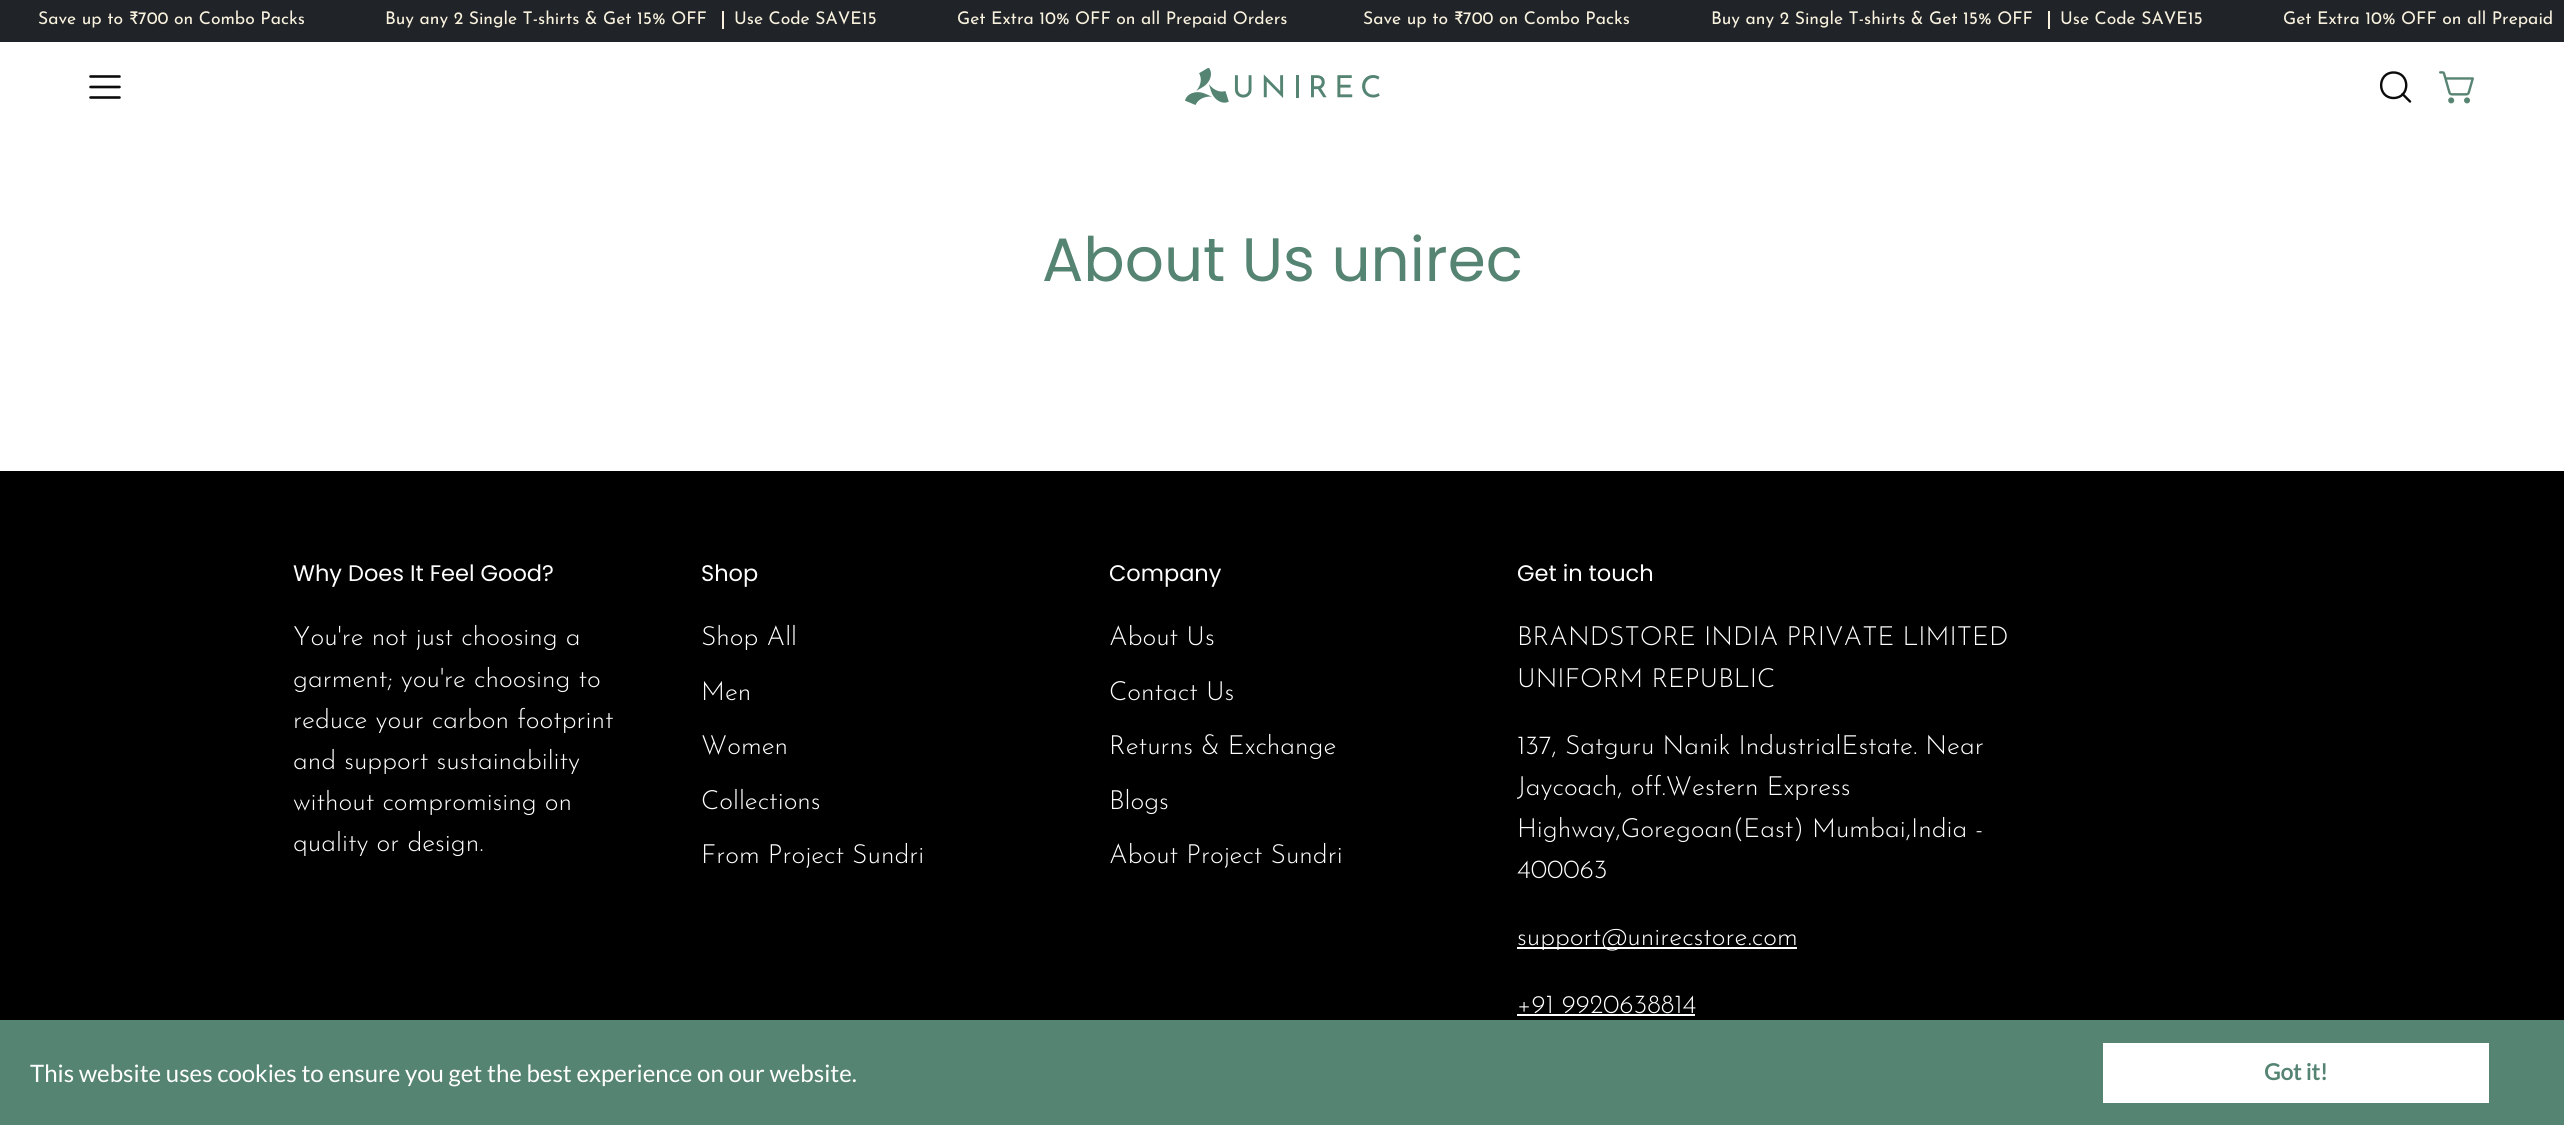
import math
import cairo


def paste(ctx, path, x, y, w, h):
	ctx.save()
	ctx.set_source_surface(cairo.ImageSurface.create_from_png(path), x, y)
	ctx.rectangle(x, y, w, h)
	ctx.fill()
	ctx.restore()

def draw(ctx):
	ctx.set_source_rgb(1, 1, 1)
	ctx.paint()
	ctx.set_source_rgb(0.125, 0.137, 0.157)
	ctx.rectangle(0, 0, 2564, 42)
	ctx.fill()
	ctx.select_font_face('Josefin Sans Thin')
	ctx.set_font_size(17.5)
	ctx.set_source_rgb(0.969, 0.945, 0.867)
	ctx.move_to(38, 24)
	ctx.show_text('Save up to ₹700 on Combo Packs')
	ctx.move_to(385, 24)
	ctx.show_text('Buy any 2 Single T-shirts & Get 15% OFF')
	ctx.rectangle(722, 11, 2, 18)
	ctx.fill()
	for x, y, s in [
		(734, 24, 'Use Code SAVE15'),
		(957, 24, 'Get Extra 10% OFF on all Prepaid Orders'),
		(1363, 24, 'Save up to ₹700 on Combo Packs'),
		(1711, 24, 'Buy any 2 Single T-shirts & Get 15% OFF'),
	]:
		ctx.move_to(x, y)
		ctx.show_text(s)
	ctx.rectangle(2048, 11, 2, 18)
	ctx.fill()
	ctx.move_to(2060, 24)
	ctx.show_text('Use Code SAVE15')
	ctx.move_to(2283, 24)
	ctx.show_text('Get Extra 10% OFF on all Prepaid')
	ctx.new_path()
	ctx.move_to(90.5, 87)
	ctx.line_to(119.5, 87)
	ctx.move_to(90.5, 76.5)
	ctx.line_to(119.5, 76.5)
	ctx.move_to(90.5, 97.5)
	ctx.line_to(119.5, 97.5)
	ctx.set_source_rgb(0.043, 0.043, 0.043)
	ctx.set_line_width(2.6)
	ctx.set_line_cap(cairo.LINE_CAP_ROUND)
	ctx.set_line_join(cairo.LINE_JOIN_ROUND)
	ctx.stroke()
	paste(ctx, 'media/1.png', 1185, 68, 195, 37)
	ctx.new_path()
	ctx.move_to(2393.5, 98)
	ctx.curve_to(2410.5, 98, 2410.5, 72.5, 2393.5, 72.5)
	ctx.curve_to(2377, 72.5, 2377, 98, 2393.5, 98)
	ctx.close_path()
	ctx.move_to(2402.5, 94)
	ctx.line_to(2410, 101.5)
	ctx.set_line_width(2.4)
	ctx.stroke()
	paste(ctx, 'media/2.png', 2439, 71, 35, 33)
	ctx.select_font_face('Poppins')
	ctx.set_font_size(61.25)
	ctx.set_source_rgb(0.333, 0.518, 0.451)
	ctx.move_to(1042, 281)
	ctx.show_text('About Us unirec')
	ctx.set_source_rgb(0, 0, 0)
	ctx.rectangle(0, 471, 2564, 549)
	ctx.fill()
	ctx.set_font_size(22.5)
	ctx.set_source_rgb(1, 1, 1)
	ctx.move_to(293, 581)
	ctx.show_text('Why Does It Feel Good?')
	ctx.select_font_face('Josefin Sans Light')
	ctx.set_font_size(26.4)
	for x, y, s in [
		(293, 645, 'You\'re not just choosing a'),
		(293, 687, 'garment; you\'re choosing to'),
		(293, 728, 'reduce your carbon footprint'),
		(293, 769, 'and support sustainability'),
		(293, 810, 'without compromising on'),
		(293, 851, 'quality or design.'),
	]:
		ctx.move_to(x, y)
		ctx.show_text(s)
	ctx.select_font_face('Poppins')
	ctx.set_font_size(22.5)
	ctx.move_to(701, 581)
	ctx.show_text('Shop')
	ctx.select_font_face('Josefin Sans Light')
	ctx.set_font_size(26.4)
	for x, y, s in [
		(701, 645, 'Shop All'),
		(701, 700, 'Men'),
		(701, 754, 'Women'),
		(701, 809, 'Collections'),
		(701, 863, 'From Project Sundri'),
	]:
		ctx.move_to(x, y)
		ctx.show_text(s)
	ctx.select_font_face('Poppins')
	ctx.set_font_size(22.5)
	ctx.move_to(1109, 581)
	ctx.show_text('Company')
	ctx.select_font_face('Josefin Sans Light')
	ctx.set_font_size(26.4)
	for x, y, s in [
		(1109, 645, 'About Us'),
		(1109, 700, 'Contact Us'),
		(1109, 754, 'Returns & Exchange'),
		(1109, 809, 'Blogs'),
		(1109, 863, 'About Project Sundri'),
	]:
		ctx.move_to(x, y)
		ctx.show_text(s)
	ctx.select_font_face('Poppins')
	ctx.set_font_size(22.5)
	ctx.move_to(1517, 581)
	ctx.show_text('Get in touch')
	ctx.select_font_face('Josefin Sans Light')
	ctx.set_font_size(26.4)
	for x, y, s in [
		(1517, 645, 'BRANDSTORE INDIA PRIVATE LIMITED'),
		(1517, 687, 'UNIFORM REPUBLIC'),
		(1517, 754, '137, Satguru Nanik IndustrialEstate. Near'),
		(1517, 795, 'Jaycoach, off.Western Express'),
		(1517, 837, 'Highway,Goregoan(East) Mumbai,India -'),
		(1517, 878, '400063'),
	]:
		ctx.move_to(x, y)
		ctx.show_text(s)
	ctx.rectangle(1517, 947, 280, 2)
	ctx.fill()
	ctx.move_to(1517, 945)
	ctx.show_text('support@unirecstore.com')
	ctx.move_to(1517, 1013)
	ctx.show_text('+91 9920638814')
	ctx.rectangle(1517, 1014, 178, 2)
	ctx.fill()
	ctx.set_source_rgb(0.333, 0.518, 0.451)
	ctx.rectangle(0, 1020, 2564, 105)
	ctx.fill()
	ctx.select_font_face('Lato')
	ctx.set_font_size(24)
	ctx.set_source_rgb(1, 1, 1)
	ctx.move_to(30, 1082)
	ctx.show_text('This website uses cookies to ensure you get the best experience on our website.')
	ctx.rectangle(2103, 1043, 386, 60)
	ctx.fill()
	ctx.select_font_face('Lato', cairo.FONT_SLANT_NORMAL, cairo.FONT_WEIGHT_BOLD)
	ctx.set_font_size(22.5)
	ctx.set_source_rgb(0.333, 0.518, 0.451)
	ctx.move_to(2264, 1080)
	ctx.show_text('Got it!')


surface = cairo.ImageSurface(cairo.FORMAT_RGB24, 2564, 1125)
ctx = cairo.Context(surface)
options = cairo.FontOptions()
options.set_hint_metrics(cairo.HINT_METRICS_OFF)
options.set_hint_style(cairo.HINT_STYLE_NONE)
ctx.set_font_options(options)
ctx.set_miter_limit(4)
draw(ctx)
surface.write_to_png('image.png')
